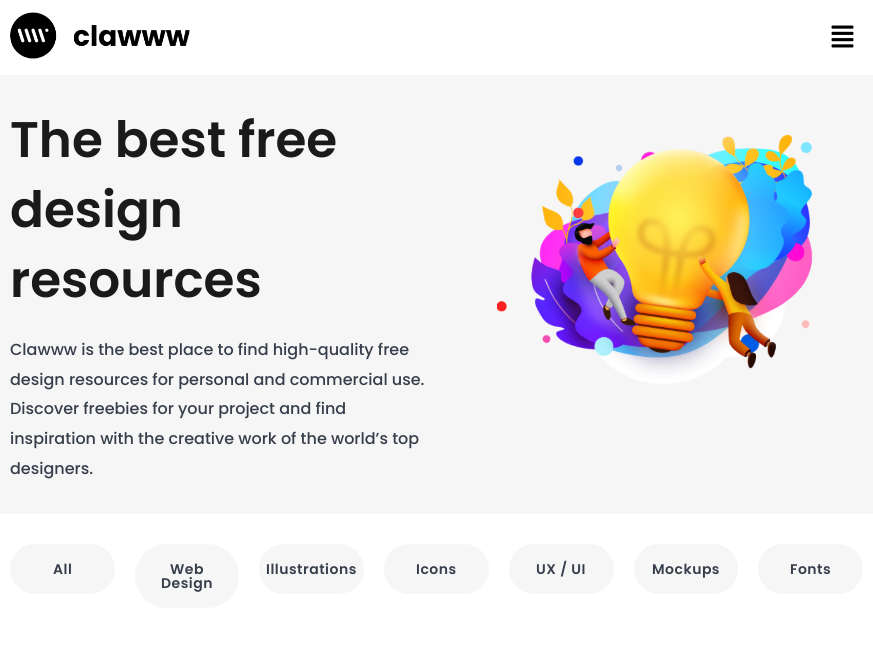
import math
import cairo


def write_spaced(ctx, x, y, s, letter, word):
	ctx.move_to(x, y)
	for ch in s:
		ctx.show_text(ch)
		ctx.rel_move_to(letter + word * (ch == ' '), 0)

def round_path(ctx, x, y, w, h, r):
	ctx.new_sub_path()
	for i, (u, v) in enumerate([(x + w - r, y + h - r), (x + r, y + h - r), (x + r, y + r), (x + w - r, y + r)]):
		ctx.arc(u, v, r, i * math.pi / 2, (i + 1) * math.pi / 2)
	ctx.close_path()

def paste(ctx, path, x, y, w, h):
	ctx.save()
	ctx.set_source_surface(cairo.ImageSurface.create_from_png(path), x, y)
	ctx.rectangle(x, y, w, h)
	ctx.fill()
	ctx.restore()

def draw(ctx):
	ctx.set_source_rgb(1, 1, 1)
	ctx.paint()
	paste(ctx, 'media/1.png', 10, 12, 180, 47)
	paste(ctx, 'media/2.png', 831, 25, 23, 23)
	ctx.set_source_rgb(0.961, 0.961, 0.961)
	ctx.rectangle(0, 75, 873, 439)
	ctx.fill()
	ctx.select_font_face('Poppins SemiBold')
	ctx.set_font_size(50)
	ctx.set_source_rgb(0.102, 0.102, 0.102)
	for x, y, s in [
		(10, 157, 'The best free'),
		(10, 227, 'design'),
		(10, 297, 'resources'),
	]:
		ctx.move_to(x, y)
		ctx.show_text(s)
	ctx.select_font_face('Poppins Medium')
	ctx.set_font_size(16)
	ctx.set_source_rgb(0.216, 0.243, 0.294)
	for x, y, s in [
		(10, 355, 'Clawww is the best place to find high-quality free'),
		(10, 385, 'design resources for personal and commercial use.'),
		(10, 414, 'Discover freebies for your project and find'),
		(10, 444, 'inspiration with the creative work of the world’s top'),
		(10, 474, 'designers.'),
	]:
		ctx.move_to(x, y)
		ctx.show_text(s)
	paste(ctx, 'media/3.png', 497, 135, 316, 249)
	ctx.set_source_rgb(0.961, 0.961, 0.961)
	round_path(ctx, 10, 544, 105, 50, 25)
	ctx.fill()
	ctx.select_font_face('Poppins SemiBold')
	ctx.set_font_size(14)
	ctx.set_source_rgb(0.216, 0.243, 0.294)
	write_spaced(ctx, 53, 574, 'All', 0.5, 0)
	ctx.set_source_rgb(0.961, 0.961, 0.961)
	round_path(ctx, 135, 544, 104, 64, 32)
	ctx.fill()
	ctx.set_source_rgb(0.216, 0.243, 0.294)
	write_spaced(ctx, 170, 574, 'Web', 0.5, 0)
	write_spaced(ctx, 161, 588, 'Design', 0.5, 0)
	ctx.set_source_rgb(0.961, 0.961, 0.961)
	round_path(ctx, 259, 544, 105, 50, 25)
	ctx.fill()
	ctx.set_source_rgb(0.216, 0.243, 0.294)
	write_spaced(ctx, 266, 574, 'Illustrations', 0.5, 0)
	ctx.set_source_rgb(0.961, 0.961, 0.961)
	round_path(ctx, 384, 544, 105, 50, 25)
	ctx.fill()
	ctx.set_source_rgb(0.216, 0.243, 0.294)
	write_spaced(ctx, 416, 574, 'Icons', 0.5, 0)
	ctx.set_source_rgb(0.961, 0.961, 0.961)
	round_path(ctx, 509, 544, 105, 50, 25)
	ctx.fill()
	ctx.set_source_rgb(0.216, 0.243, 0.294)
	write_spaced(ctx, 536, 574, 'UX / UI', 0.5, 0)
	ctx.set_source_rgb(0.961, 0.961, 0.961)
	round_path(ctx, 634, 544, 104, 50, 25)
	ctx.fill()
	ctx.set_source_rgb(0.216, 0.243, 0.294)
	write_spaced(ctx, 652, 574, 'Mockups', 0.5, 0)
	ctx.set_source_rgb(0.961, 0.961, 0.961)
	round_path(ctx, 758, 544, 105, 50, 25)
	ctx.fill()
	ctx.set_source_rgb(0.216, 0.243, 0.294)
	write_spaced(ctx, 790, 574, 'Fonts', 0.5, 0)


surface = cairo.ImageSurface(cairo.FORMAT_RGB24, 873, 650)
ctx = cairo.Context(surface)
options = cairo.FontOptions()
options.set_hint_metrics(cairo.HINT_METRICS_OFF)
options.set_hint_style(cairo.HINT_STYLE_NONE)
ctx.set_font_options(options)
ctx.set_miter_limit(4)
draw(ctx)
surface.write_to_png('image.png')
